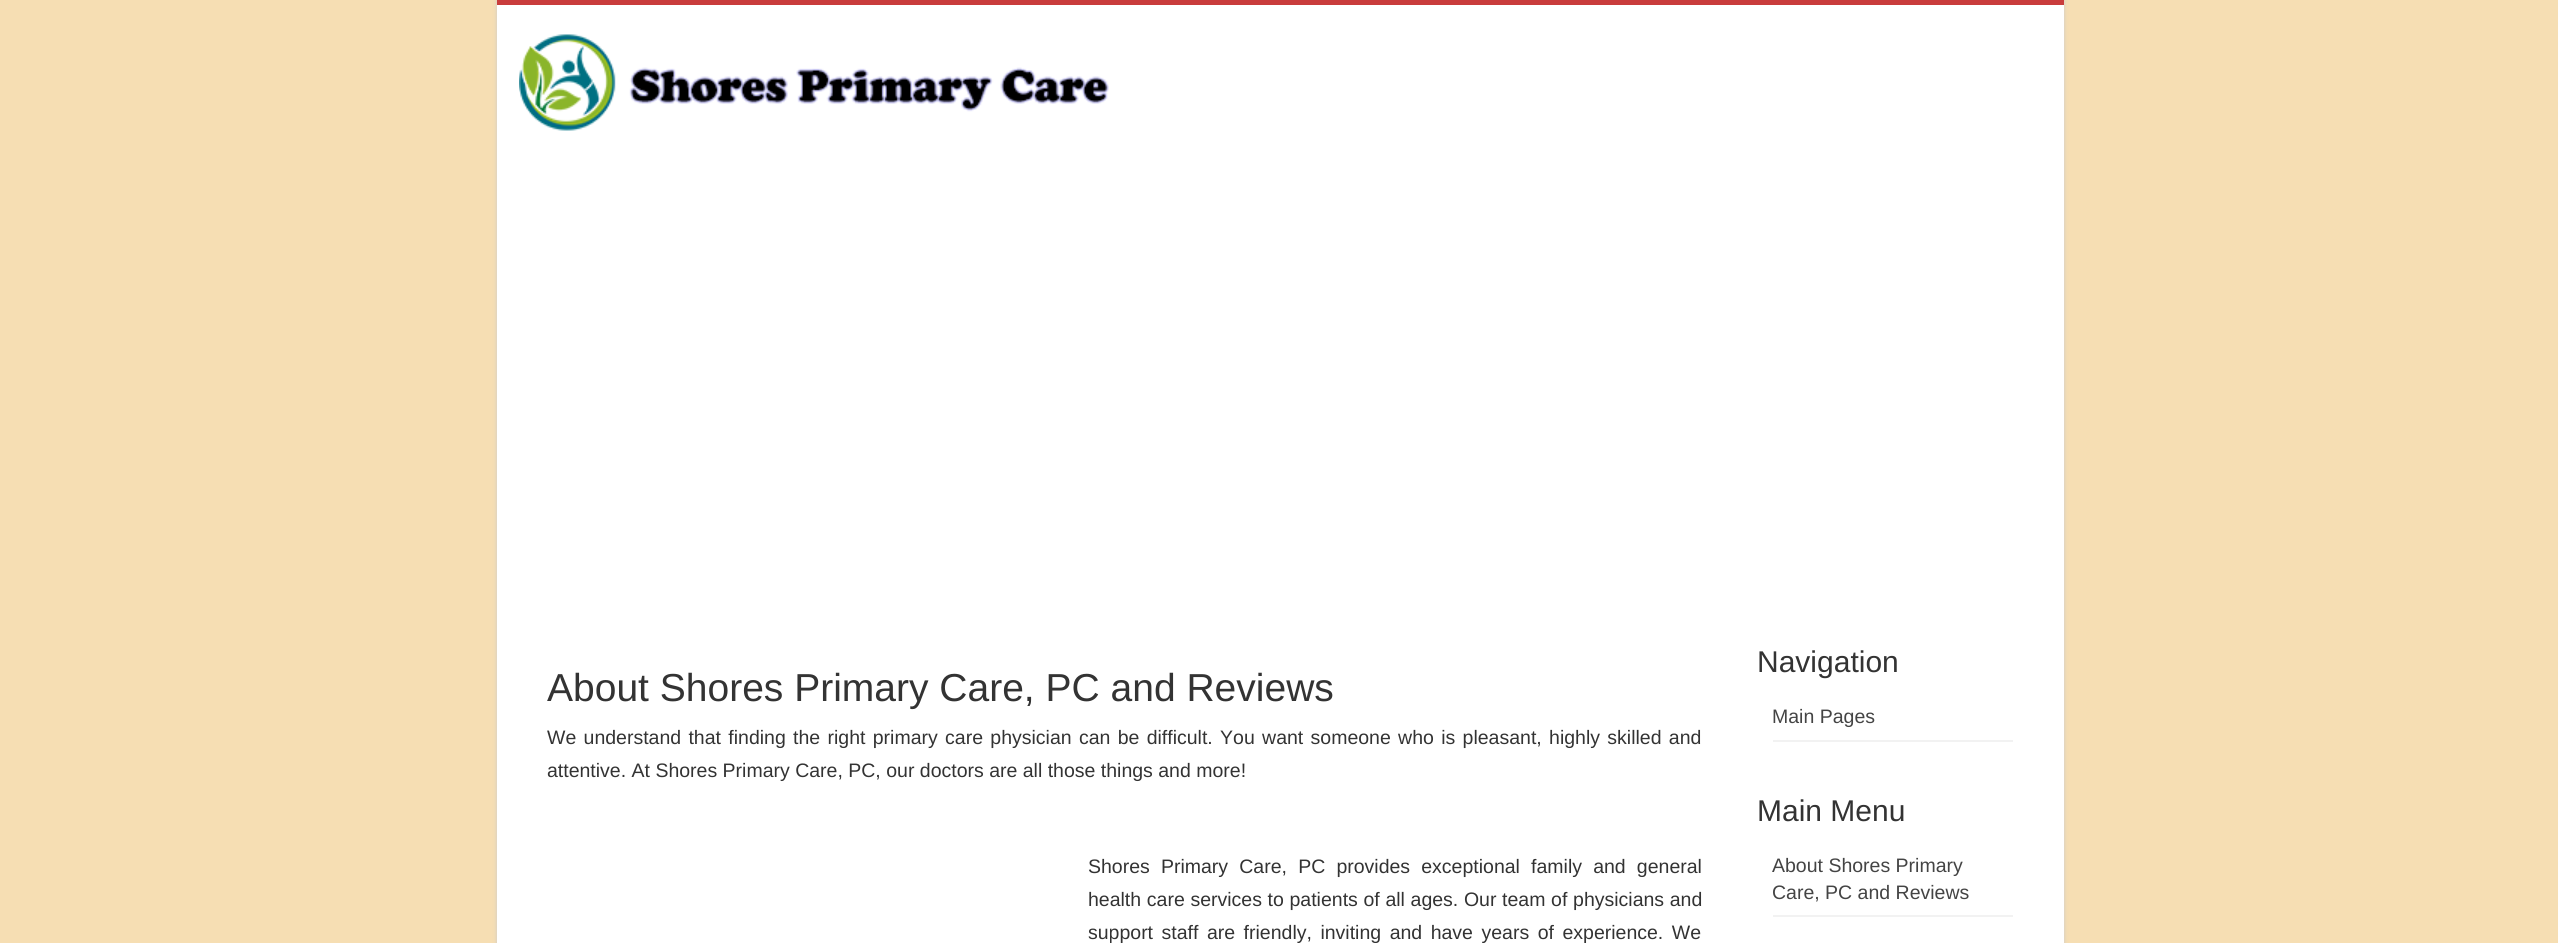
import math
import cairo


def write_spaced(ctx, x, y, s, letter, word):
	ctx.move_to(x, y)
	for ch in s:
		ctx.show_text(ch)
		ctx.rel_move_to(letter + word * (ch == ' '), 0)

def round_path(ctx, x, y, w, h, r):
	ctx.new_sub_path()
	for i, (u, v) in enumerate([(x + w - r, y + h - r), (x + r, y + h - r), (x + r, y + r), (x + w - r, y + r)]):
		ctx.arc(u, v, r, i * math.pi / 2, (i + 1) * math.pi / 2)
	ctx.close_path()

def blur_box(ctx, x, y, w, h, r, blur, alpha):
	ctx.push_group_with_content(cairo.CONTENT_ALPHA)
	ctx.set_operator(cairo.OPERATOR_SOURCE)
	for i in range(15, -16, -2):
		e = blur * i / 6
		if min(w, h) + 2 * e > 0:
			ctx.set_source_rgba(0, 0, 0, alpha * math.erfc((i - 1) / 8.5) / 2)
			round_path(ctx, x - e, y - e, w + 2 * e, h + 2 * e, max(0, min(r + e + blur * .6, min(w, h) / 2 + e)))
			ctx.fill()
	ctx.mask(ctx.pop_group())

def paste(ctx, path, x, y, w, h):
	ctx.save()
	ctx.set_source_surface(cairo.ImageSurface.create_from_png(path), x, y)
	ctx.rectangle(x, y, w, h)
	ctx.fill()
	ctx.restore()

def draw(ctx):
	ctx.set_source_rgb(0.961, 0.871, 0.702)
	ctx.paint()
	ctx.set_source_rgb(0.792, 0.792, 0.792)
	blur_box(ctx, 497, 0, 1567, 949, 0, 2, 1)
	ctx.set_source_rgb(1, 1, 1)
	ctx.rectangle(497, 5, 1567, 938)
	ctx.fill()
	ctx.set_source_rgb(0.788, 0.235, 0.235)
	ctx.rectangle(497, 0, 1567, 5)
	ctx.fill()
	paste(ctx, 'media/1.png', 519, 34, 590, 97)
	ctx.select_font_face('Liberation Sans')
	ctx.set_font_size(39)
	ctx.set_source_rgb(0.2, 0.2, 0.2)
	ctx.move_to(547, 701)
	ctx.show_text('About Shores Primary Care, PC and Reviews')
	ctx.set_font_size(19.5)
	write_spaced(ctx, 547, 744, 'We understand that finding the right primary care physician can be difficult. You want someone who is pleasant, highly skilled and', 0, 1.9)
	ctx.move_to(547, 777)
	ctx.show_text('attentive. At Shores Primary Care, PC, our doctors are all those things and more!')
	write_spaced(ctx, 1088, 873, 'Shores Primary Care, PC provides exceptional family and general', 0, 5.75)
	write_spaced(ctx, 1088, 906, 'health care services to patients of all ages. Our team of physicians and', 0, 0.25)
	write_spaced(ctx, 1088, 939, 'support staff are friendly, inviting and have years of experience. We', 0, 3.1)
	ctx.set_font_size(30)
	ctx.move_to(1757, 672)
	ctx.show_text('Navigation')
	ctx.set_source_rgb(0.949, 0.949, 0.949)
	ctx.rectangle(1773, 740, 240, 2)
	ctx.fill()
	ctx.set_font_size(19.5)
	ctx.set_source_rgb(0.267, 0.267, 0.267)
	ctx.move_to(1772, 723)
	ctx.show_text('Main Pages')
	ctx.set_font_size(30)
	ctx.set_source_rgb(0.2, 0.2, 0.2)
	ctx.move_to(1757, 821)
	ctx.show_text('Main Menu')
	ctx.set_source_rgb(0.949, 0.949, 0.949)
	ctx.rectangle(1773, 915, 240, 2)
	ctx.fill()
	ctx.set_font_size(19.5)
	ctx.set_source_rgb(0.267, 0.267, 0.267)
	ctx.move_to(1772, 872)
	ctx.show_text('About Shores Primary')
	ctx.move_to(1772, 899)
	ctx.show_text('Care, PC and Reviews')


surface = cairo.ImageSurface(cairo.FORMAT_RGB24, 2558, 943)
ctx = cairo.Context(surface)
options = cairo.FontOptions()
options.set_hint_metrics(cairo.HINT_METRICS_OFF)
options.set_hint_style(cairo.HINT_STYLE_NONE)
ctx.set_font_options(options)
ctx.set_miter_limit(4)
draw(ctx)
surface.write_to_png('image.png')
